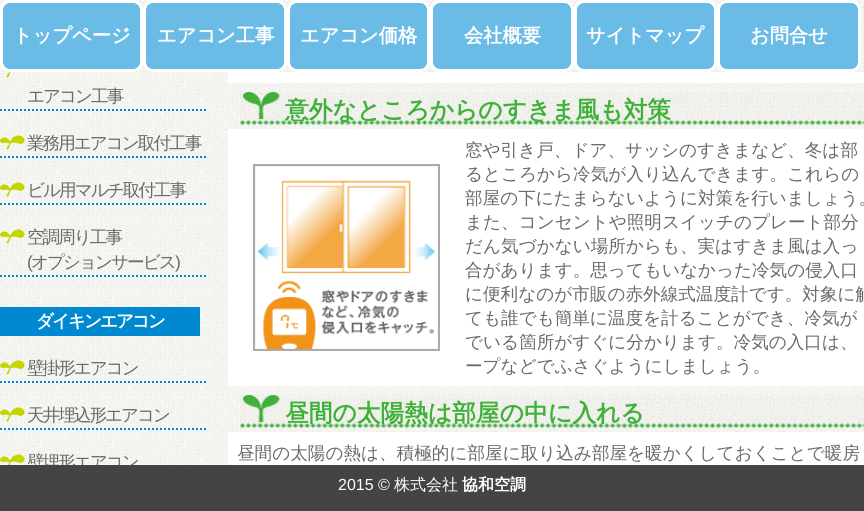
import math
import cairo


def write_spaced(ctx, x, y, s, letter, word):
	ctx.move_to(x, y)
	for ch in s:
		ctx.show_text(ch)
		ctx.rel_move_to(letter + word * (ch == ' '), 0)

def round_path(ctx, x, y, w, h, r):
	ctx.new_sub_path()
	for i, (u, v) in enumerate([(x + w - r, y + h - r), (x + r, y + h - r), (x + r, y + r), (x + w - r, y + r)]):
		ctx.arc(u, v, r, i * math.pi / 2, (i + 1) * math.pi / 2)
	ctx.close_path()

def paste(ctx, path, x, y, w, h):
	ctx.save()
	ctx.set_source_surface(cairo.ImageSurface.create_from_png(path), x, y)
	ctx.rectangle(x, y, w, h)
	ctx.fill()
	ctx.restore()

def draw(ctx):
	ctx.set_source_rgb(1, 1, 1)
	ctx.paint()
	paste(ctx, 'media/1.png', 0, 72, 864, 393)
	paste(ctx, 'media/2.png', 0, 0, 864, 72)
	ctx.set_source_rgb(0.416, 0.733, 0.898)
	round_path(ctx, 1.5, 1.5, 140, 69, 8.5)
	ctx.fill_preserve()
	ctx.set_source_rgb(1, 1, 1)
	ctx.set_line_width(3)
	ctx.stroke()
	ctx.select_font_face('WenQuanYi Zen Hei', cairo.FONT_SLANT_NORMAL, cairo.FONT_WEIGHT_BOLD)
	ctx.set_font_size(19.25)
	ctx.move_to(13, 42)
	ctx.show_text('トップページ')
	ctx.set_source_rgb(0.416, 0.733, 0.898)
	round_path(ctx, 144.5, 1.5, 141, 69, 8.5)
	ctx.fill_preserve()
	ctx.set_source_rgb(1, 1, 1)
	ctx.stroke()
	ctx.move_to(157, 42)
	ctx.show_text('エアコン工事')
	ctx.set_source_rgb(0.416, 0.733, 0.898)
	round_path(ctx, 288.5, 1.5, 140, 69, 8.5)
	ctx.fill_preserve()
	ctx.set_source_rgb(1, 1, 1)
	ctx.stroke()
	ctx.move_to(300, 42)
	ctx.show_text('エアコン価格')
	ctx.set_source_rgb(0.416, 0.733, 0.898)
	round_path(ctx, 431.5, 1.5, 141, 69, 8.5)
	ctx.fill_preserve()
	ctx.set_source_rgb(1, 1, 1)
	ctx.stroke()
	ctx.move_to(464, 42)
	ctx.show_text('会社概要')
	ctx.set_source_rgb(0.416, 0.733, 0.898)
	round_path(ctx, 575.5, 1.5, 140, 69, 8.5)
	ctx.fill_preserve()
	ctx.set_source_rgb(1, 1, 1)
	ctx.stroke()
	ctx.move_to(586, 42)
	ctx.show_text('サイトマップ')
	ctx.set_source_rgb(0.416, 0.733, 0.898)
	round_path(ctx, 718.5, 1.5, 141, 69, 8.5)
	ctx.fill_preserve()
	ctx.set_source_rgb(1, 1, 1)
	ctx.stroke()
	ctx.move_to(750, 42)
	ctx.show_text('お問合せ')
	paste(ctx, 'media/3.png', 6, 72, 5, 6)
	ctx.new_path()
	ctx.move_to(0, 110)
	ctx.line_to(207, 110)
	ctx.set_source_rgb(0, 0.537, 0.816)
	ctx.set_line_width(2)
	ctx.set_dash([2, 2])
	ctx.stroke()
	ctx.select_font_face('WenQuanYi Zen Hei Medium')
	ctx.set_font_size(17.6)
	ctx.set_source_rgb(0.412, 0.412, 0.412)
	write_spaced(ctx, 27, 102, 'エアコン工事', -2, 0)
	paste(ctx, 'media/4.png', 0, 135, 25, 15)
	ctx.new_path()
	ctx.move_to(0, 157)
	ctx.line_to(207, 157)
	ctx.set_source_rgb(0, 0.537, 0.816)
	ctx.stroke()
	ctx.set_source_rgb(0.412, 0.412, 0.412)
	write_spaced(ctx, 27, 149, '業務用エアコン取付工事', -2, 0)
	paste(ctx, 'media/5.png', 0, 182, 25, 15)
	ctx.new_path()
	ctx.move_to(0, 204)
	ctx.line_to(207, 204)
	ctx.set_source_rgb(0, 0.537, 0.816)
	ctx.stroke()
	ctx.set_source_rgb(0.412, 0.412, 0.412)
	write_spaced(ctx, 27, 196, 'ビル用マルチ取付工事', -2, 0)
	paste(ctx, 'media/6.png', 0, 229, 25, 15)
	ctx.new_path()
	ctx.move_to(0, 276)
	ctx.line_to(207, 276)
	ctx.set_source_rgb(0, 0.537, 0.816)
	ctx.stroke()
	ctx.set_source_rgb(0.412, 0.412, 0.412)
	write_spaced(ctx, 27, 243, '空調周り工事', -2, 0)
	ctx.select_font_face('Liberation Sans')
	write_spaced(ctx, 27, 268, '(', -2, 0)
	ctx.select_font_face('WenQuanYi Zen Hei Medium')
	write_spaced(ctx, 31, 268, 'オプションサービス', -2, 0)
	ctx.select_font_face('Liberation Sans')
	write_spaced(ctx, 175, 268, ')', -2, 0)
	ctx.set_source_rgb(0, 0.537, 0.816)
	ctx.rectangle(0, 307, 200, 29)
	ctx.fill()
	ctx.select_font_face('WenQuanYi Zen Hei', cairo.FONT_SLANT_NORMAL, cairo.FONT_WEIGHT_BOLD)
	ctx.set_source_rgb(1, 1, 1)
	write_spaced(ctx, 36, 327, 'ダイキンエアコン', -2, 0)
	paste(ctx, 'media/7.png', 0, 360, 25, 15)
	ctx.new_path()
	ctx.move_to(0, 382)
	ctx.line_to(207, 382)
	ctx.set_source_rgb(0, 0.537, 0.816)
	ctx.stroke()
	ctx.select_font_face('WenQuanYi Zen Hei Medium')
	ctx.set_source_rgb(0.412, 0.412, 0.412)
	write_spaced(ctx, 27, 374, '壁掛形エアコン', -2, 0)
	paste(ctx, 'media/8.png', 0, 407, 25, 15)
	ctx.new_path()
	ctx.move_to(0, 429)
	ctx.line_to(207, 429)
	ctx.set_source_rgb(0, 0.537, 0.816)
	ctx.stroke()
	ctx.set_source_rgb(0.412, 0.412, 0.412)
	write_spaced(ctx, 27, 421, '天井埋込形エアコン', -2, 0)
	paste(ctx, 'media/9.png', 0, 454, 25, 11)
	write_spaced(ctx, 27, 468, '壁埋形エアコン', -2, 0)
	ctx.set_source_rgb(1, 1, 1)
	ctx.rectangle(228, 72, 636, 11)
	ctx.fill()
	paste(ctx, 'media/10.png', 240, 92, 624, 33)
	ctx.select_font_face('WenQuanYi Zen Hei', cairo.FONT_SLANT_NORMAL, cairo.FONT_WEIGHT_BOLD)
	ctx.set_font_size(23.75)
	ctx.set_source_rgb(0.247, 0.694, 0.224)
	ctx.move_to(285, 118)
	ctx.show_text('意外なところからのすきま風も対策')
	ctx.set_source_rgb(1, 1, 1)
	ctx.rectangle(228, 129, 636, 257)
	ctx.fill()
	paste(ctx, 'media/11.png', 253, 164, 187, 187)
	ctx.select_font_face('WenQuanYi Zen Hei Medium')
	ctx.set_font_size(17.6)
	ctx.set_source_rgb(0.412, 0.412, 0.412)
	for x, y, s in [
		(465, 156, '窓や引き戸、ドア、サッシのすきまなど、冬は部'),
		(465, 180, 'るところから冷気が入り込んできます。これらの'),
		(465, 204, '部屋の下にたまらないように対策を行いましょう。'),
		(465, 228, 'また、コンセントや照明スイッチのプレート部分'),
		(465, 252, 'だん気づかない場所からも、実はすきま風は入っ'),
		(465, 276, '合があります。思ってもいなかった冷気の侵入口'),
		(465, 300, 'に便利なのが市販の赤外線式温度計です。対象に触'),
		(465, 324, 'ても誰でも簡単に温度を計ることができ、冷気が'),
		(465, 348, 'でいる箇所がすぐに分かります。冷気の入口は、'),
		(465, 372, 'ープなどでふさぐようにしましょう。'),
	]:
		ctx.move_to(x, y)
		ctx.show_text(s)
	paste(ctx, 'media/12.png', 240, 395, 624, 33)
	ctx.select_font_face('WenQuanYi Zen Hei', cairo.FONT_SLANT_NORMAL, cairo.FONT_WEIGHT_BOLD)
	ctx.set_font_size(23.75)
	ctx.set_source_rgb(0.247, 0.694, 0.224)
	ctx.move_to(285, 421)
	ctx.show_text('昼間の太陽熱は部屋の中に入れる')
	ctx.set_source_rgb(1, 1, 1)
	ctx.rectangle(228, 432, 636, 33)
	ctx.fill()
	ctx.select_font_face('WenQuanYi Zen Hei Medium')
	ctx.set_font_size(17.6)
	ctx.set_source_rgb(0.412, 0.412, 0.412)
	ctx.move_to(237, 459)
	ctx.show_text('昼間の太陽の熱は、積極的に部屋に取り込み部屋を暖かくしておくことで暖房')
	ctx.set_source_rgb(0.267, 0.267, 0.267)
	ctx.rectangle(0, 465, 864, 46)
	ctx.fill()
	ctx.select_font_face('Liberation Sans')
	ctx.set_font_size(16)
	ctx.set_source_rgb(1, 1, 1)
	ctx.move_to(338, 490)
	ctx.show_text('2015 ©')
	ctx.select_font_face('WenQuanYi Zen Hei Medium')
	ctx.move_to(394, 490)
	ctx.show_text('株式会社')
	ctx.select_font_face('WenQuanYi Zen Hei', cairo.FONT_SLANT_NORMAL, cairo.FONT_WEIGHT_BOLD)
	ctx.move_to(462, 490)
	ctx.show_text('協和空調')


surface = cairo.ImageSurface(cairo.FORMAT_RGB24, 864, 511)
ctx = cairo.Context(surface)
options = cairo.FontOptions()
options.set_hint_metrics(cairo.HINT_METRICS_OFF)
options.set_hint_style(cairo.HINT_STYLE_NONE)
ctx.set_font_options(options)
ctx.set_miter_limit(4)
draw(ctx)
surface.write_to_png('image.png')
